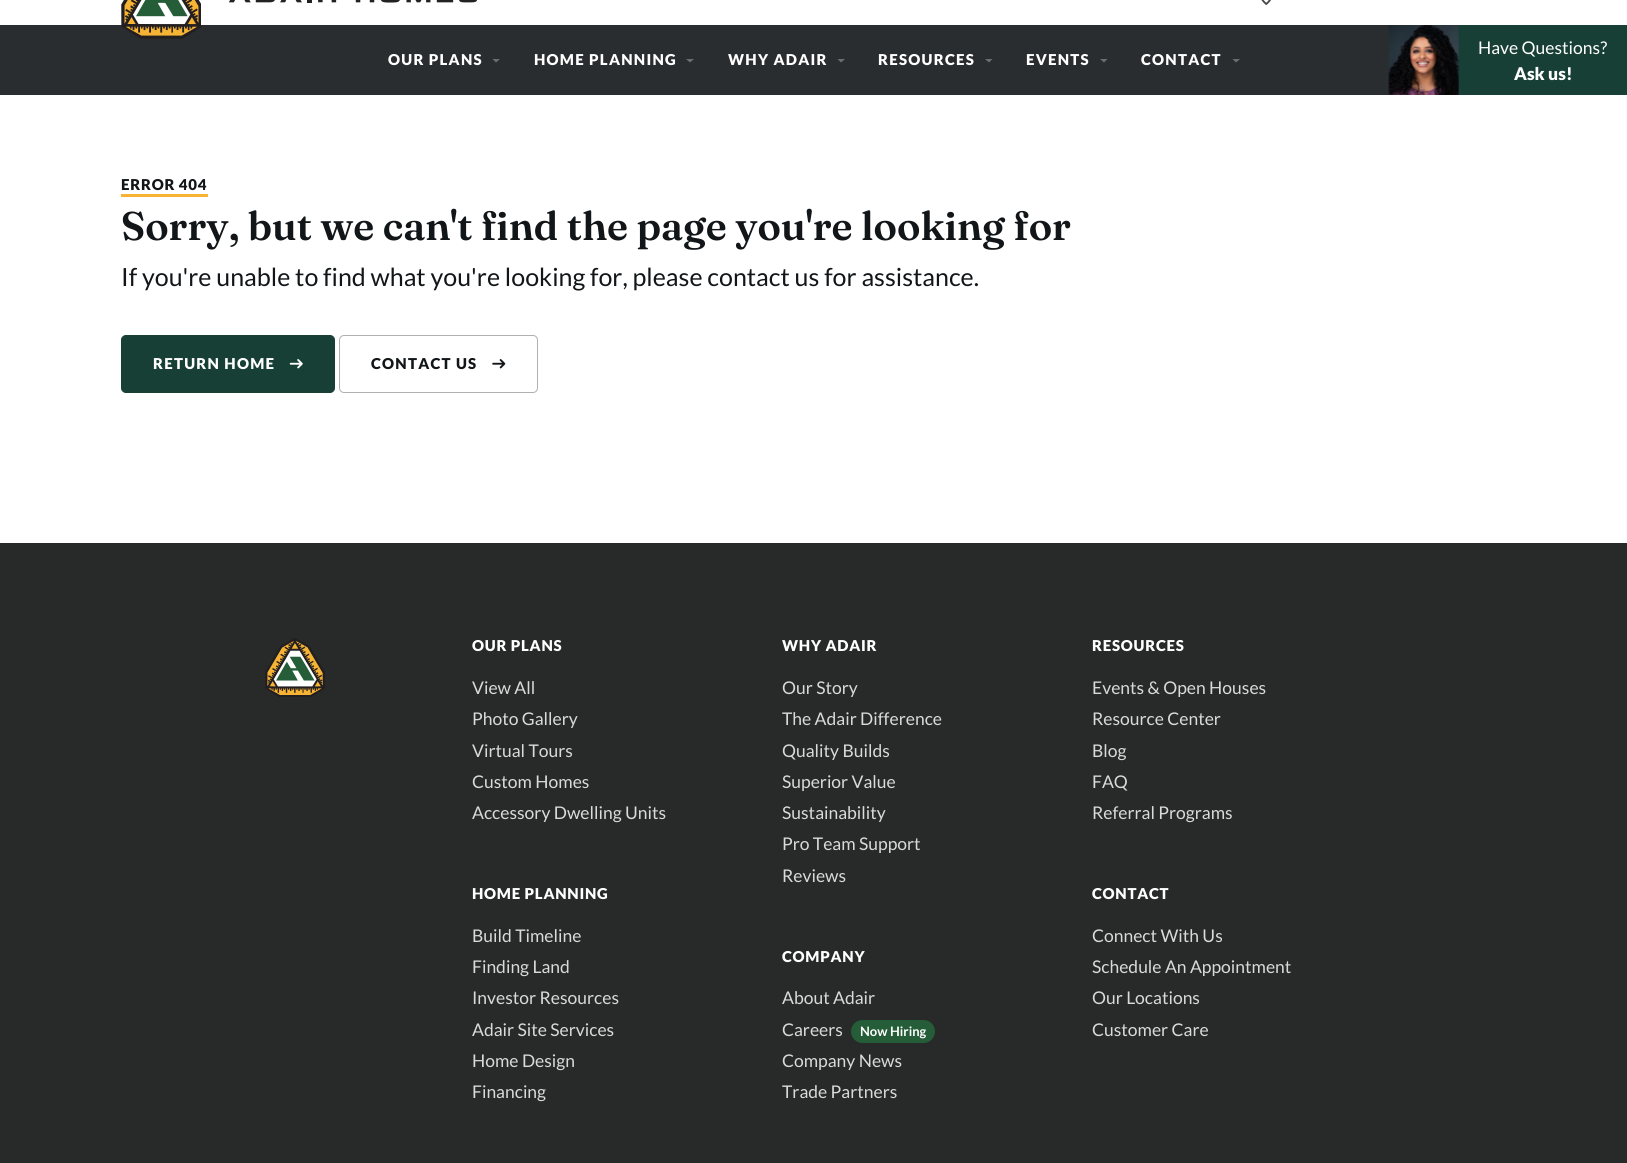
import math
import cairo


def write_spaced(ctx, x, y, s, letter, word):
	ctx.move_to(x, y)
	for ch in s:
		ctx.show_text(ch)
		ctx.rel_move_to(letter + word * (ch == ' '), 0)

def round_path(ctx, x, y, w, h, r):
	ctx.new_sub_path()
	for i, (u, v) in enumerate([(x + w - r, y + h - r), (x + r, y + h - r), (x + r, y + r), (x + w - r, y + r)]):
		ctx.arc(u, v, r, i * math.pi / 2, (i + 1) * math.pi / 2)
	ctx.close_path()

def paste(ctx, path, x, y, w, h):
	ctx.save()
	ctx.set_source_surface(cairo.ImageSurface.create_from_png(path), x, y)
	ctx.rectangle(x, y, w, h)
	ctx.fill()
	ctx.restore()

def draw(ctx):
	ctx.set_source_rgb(1, 1, 1)
	ctx.paint()
	ctx.set_source_rgb(0.165, 0.176, 0.184)
	ctx.rectangle(0, 25, 1389, 70)
	ctx.fill()
	paste(ctx, 'media/1.png', 121, 0, 80, 39)
	paste(ctx, 'media/2.png', 229, 0, 248, 3)
	paste(ctx, 'media/3.png', 1261, 0, 10, 5)
	ctx.select_font_face('Lato Black')
	ctx.set_font_size(15)
	ctx.set_source_rgb(1, 1, 1)
	write_spaced(ctx, 388, 65, 'OUR PLANS', 1.25, 0)
	ctx.set_source_rgb(0.42, 0.431, 0.435)
	ctx.new_path()
	ctx.move_to(492.5, 59)
	ctx.line_to(500, 59)
	ctx.line_to(496, 62.5)
	ctx.close_path()
	ctx.fill()
	ctx.set_source_rgb(1, 1, 1)
	write_spaced(ctx, 534, 65, 'HOME PLANNING', 1.25, 0)
	ctx.set_source_rgb(0.42, 0.431, 0.435)
	ctx.new_path()
	ctx.move_to(686, 59)
	ctx.line_to(694, 59)
	ctx.line_to(690, 62.5)
	ctx.close_path()
	ctx.fill()
	ctx.set_source_rgb(1, 1, 1)
	write_spaced(ctx, 728, 65, 'WHY ADAIR', 1.25, 0)
	ctx.set_source_rgb(0.42, 0.431, 0.435)
	ctx.new_path()
	ctx.move_to(837.5, 59)
	ctx.line_to(845, 59)
	ctx.line_to(841, 62.5)
	ctx.close_path()
	ctx.fill()
	ctx.set_source_rgb(1, 1, 1)
	write_spaced(ctx, 878, 65, 'RESOURCES', 1.25, 0)
	ctx.set_source_rgb(0.42, 0.431, 0.435)
	ctx.new_path()
	ctx.move_to(985, 59)
	ctx.line_to(992.5, 59)
	ctx.line_to(989, 62.5)
	ctx.close_path()
	ctx.fill()
	ctx.set_source_rgb(1, 1, 1)
	write_spaced(ctx, 1026, 65, 'EVENTS', 1.25, 0)
	ctx.set_source_rgb(0.42, 0.431, 0.435)
	ctx.new_path()
	ctx.move_to(1100, 59)
	ctx.line_to(1107.5, 59)
	ctx.line_to(1104, 62.5)
	ctx.close_path()
	ctx.fill()
	ctx.set_source_rgb(1, 1, 1)
	write_spaced(ctx, 1141, 65, 'CONTACT', 1.25, 0)
	ctx.set_source_rgb(0.42, 0.431, 0.435)
	ctx.new_path()
	ctx.move_to(1232.5, 59)
	ctx.line_to(1240, 59)
	ctx.line_to(1236, 62.5)
	ctx.close_path()
	ctx.fill()
	ctx.set_source_rgb(0.09, 0.247, 0.208)
	ctx.rectangle(1389, 25, 238, 70)
	ctx.fill()
	paste(ctx, 'media/4.png', 1388, 25, 71, 70)
	ctx.select_font_face('Lato')
	ctx.set_font_size(17.5)
	ctx.set_source_rgb(1, 1, 1)
	ctx.move_to(1478, 54)
	ctx.show_text('Have Questions?')
	ctx.select_font_face('Lato Black')
	ctx.move_to(1514, 80)
	ctx.show_text('Ask us!')
	ctx.set_font_size(15)
	ctx.set_source_rgb(0.071, 0.086, 0.094)
	write_spaced(ctx, 121, 190, 'ERROR 404', 0.75, 0)
	ctx.set_source_rgb(0.969, 0.702, 0.204)
	ctx.rectangle(121, 194, 87, 3)
	ctx.fill()
	ctx.select_font_face('Fraunces SemiBold')
	ctx.set_font_size(40)
	ctx.set_source_rgb(0.071, 0.086, 0.094)
	ctx.move_to(121, 240)
	ctx.show_text('Sorry, but we can\'t find the page you\'re looking for')
	ctx.select_font_face('Lato')
	ctx.set_font_size(25)
	ctx.move_to(121, 286)
	ctx.show_text('If you\'re unable to find what you\'re looking for, please contact us for assistance.')
	ctx.set_source_rgb(0.09, 0.247, 0.208)
	round_path(ctx, 121.5, 335.5, 213, 57, 4.5)
	ctx.fill_preserve()
	ctx.set_line_width(1)
	ctx.stroke()
	ctx.select_font_face('Lato Black')
	ctx.set_font_size(15)
	ctx.set_source_rgb(1, 1, 1)
	write_spaced(ctx, 153, 369, 'RETURN HOME', 1.25, 0)
	paste(ctx, 'media/5.png', 289, 359, 14, 10)
	round_path(ctx, 339.5, 335.5, 198, 57, 4.5)
	ctx.set_source_rgb(0.686, 0.69, 0.69)
	ctx.stroke()
	ctx.set_source_rgb(0.071, 0.086, 0.094)
	write_spaced(ctx, 371, 369, 'CONTACT US', 1.25, 0)
	paste(ctx, 'media/6.png', 492, 359, 14, 10)
	ctx.set_source_rgb(0.157, 0.161, 0.161)
	ctx.rectangle(0, 543, 1627, 620)
	ctx.fill()
	paste(ctx, 'media/7.png', 265, 638, 60, 59)
	ctx.set_source_rgb(1, 1, 1)
	write_spaced(ctx, 472, 651, 'OUR PLANS', 0.75, 0)
	ctx.select_font_face('Lato')
	ctx.set_font_size(17.5)
	ctx.set_source_rgb(0.855, 0.855, 0.855)
	for x, y, s in [
		(472, 694, 'View All'),
		(472, 725, 'Photo Gallery'),
		(472, 757, 'Virtual Tours'),
		(472, 788, 'Custom Homes'),
		(472, 819, 'Accessory Dwelling Units'),
	]:
		ctx.move_to(x, y)
		ctx.show_text(s)
	ctx.select_font_face('Lato Black')
	ctx.set_font_size(15)
	ctx.set_source_rgb(1, 1, 1)
	write_spaced(ctx, 472, 899, 'HOME PLANNING', 0.75, 0)
	ctx.select_font_face('Lato')
	ctx.set_font_size(17.5)
	ctx.set_source_rgb(0.855, 0.855, 0.855)
	for x, y, s in [
		(472, 942, 'Build Timeline'),
		(472, 973, 'Finding Land'),
		(472, 1004, 'Investor Resources'),
		(472, 1036, 'Adair Site Services'),
		(472, 1067, 'Home Design'),
		(472, 1098, 'Financing'),
	]:
		ctx.move_to(x, y)
		ctx.show_text(s)
	ctx.select_font_face('Lato Black')
	ctx.set_font_size(15)
	ctx.set_source_rgb(1, 1, 1)
	write_spaced(ctx, 782, 651, 'WHY ADAIR', 0.75, 0)
	ctx.select_font_face('Lato')
	ctx.set_font_size(17.5)
	ctx.set_source_rgb(0.855, 0.855, 0.855)
	for x, y, s in [
		(782, 694, 'Our Story'),
		(782, 725, 'The Adair Difference'),
		(782, 757, 'Quality Builds'),
		(782, 788, 'Superior Value'),
		(782, 819, 'Sustainability'),
		(782, 850, 'Pro Team Support'),
		(782, 882, 'Reviews'),
	]:
		ctx.move_to(x, y)
		ctx.show_text(s)
	ctx.select_font_face('Lato Black')
	ctx.set_font_size(15)
	ctx.set_source_rgb(1, 1, 1)
	write_spaced(ctx, 782, 962, 'COMPANY', 0.75, 0)
	ctx.select_font_face('Lato')
	ctx.set_font_size(17.5)
	ctx.set_source_rgb(0.855, 0.855, 0.855)
	ctx.move_to(782, 1004)
	ctx.show_text('About Adair')
	ctx.move_to(782, 1036)
	ctx.show_text('Careers')
	ctx.set_source_rgb(0.141, 0.365, 0.22)
	round_path(ctx, 851, 1020, 84, 23, 11.5)
	ctx.fill()
	ctx.select_font_face('Lato', cairo.FONT_SLANT_NORMAL, cairo.FONT_WEIGHT_BOLD)
	ctx.set_font_size(13)
	ctx.set_source_rgb(1, 1, 1)
	ctx.move_to(860, 1036)
	ctx.show_text('Now Hiring')
	ctx.select_font_face('Lato')
	ctx.set_font_size(17.5)
	ctx.set_source_rgb(0.855, 0.855, 0.855)
	ctx.move_to(782, 1067)
	ctx.show_text('Company News')
	ctx.move_to(782, 1098)
	ctx.show_text('Trade Partners')
	ctx.select_font_face('Lato Black')
	ctx.set_font_size(15)
	ctx.set_source_rgb(1, 1, 1)
	write_spaced(ctx, 1092, 651, 'RESOURCES', 0.75, 0)
	ctx.select_font_face('Lato')
	ctx.set_font_size(17.5)
	ctx.set_source_rgb(0.855, 0.855, 0.855)
	for x, y, s in [
		(1092, 694, 'Events & Open Houses'),
		(1092, 725, 'Resource Center'),
		(1092, 757, 'Blog'),
		(1092, 788, 'FAQ'),
		(1092, 819, 'Referral Programs'),
	]:
		ctx.move_to(x, y)
		ctx.show_text(s)
	ctx.select_font_face('Lato Black')
	ctx.set_font_size(15)
	ctx.set_source_rgb(1, 1, 1)
	write_spaced(ctx, 1092, 899, 'CONTACT', 0.75, 0)
	ctx.select_font_face('Lato')
	ctx.set_font_size(17.5)
	ctx.set_source_rgb(0.855, 0.855, 0.855)
	for x, y, s in [
		(1092, 942, 'Connect With Us'),
		(1092, 973, 'Schedule An Appointment'),
		(1092, 1004, 'Our Locations'),
		(1092, 1036, 'Customer Care'),
	]:
		ctx.move_to(x, y)
		ctx.show_text(s)


surface = cairo.ImageSurface(cairo.FORMAT_RGB24, 1627, 1163)
ctx = cairo.Context(surface)
options = cairo.FontOptions()
options.set_hint_metrics(cairo.HINT_METRICS_OFF)
options.set_hint_style(cairo.HINT_STYLE_NONE)
ctx.set_font_options(options)
ctx.set_miter_limit(4)
draw(ctx)
surface.write_to_png('image.png')
